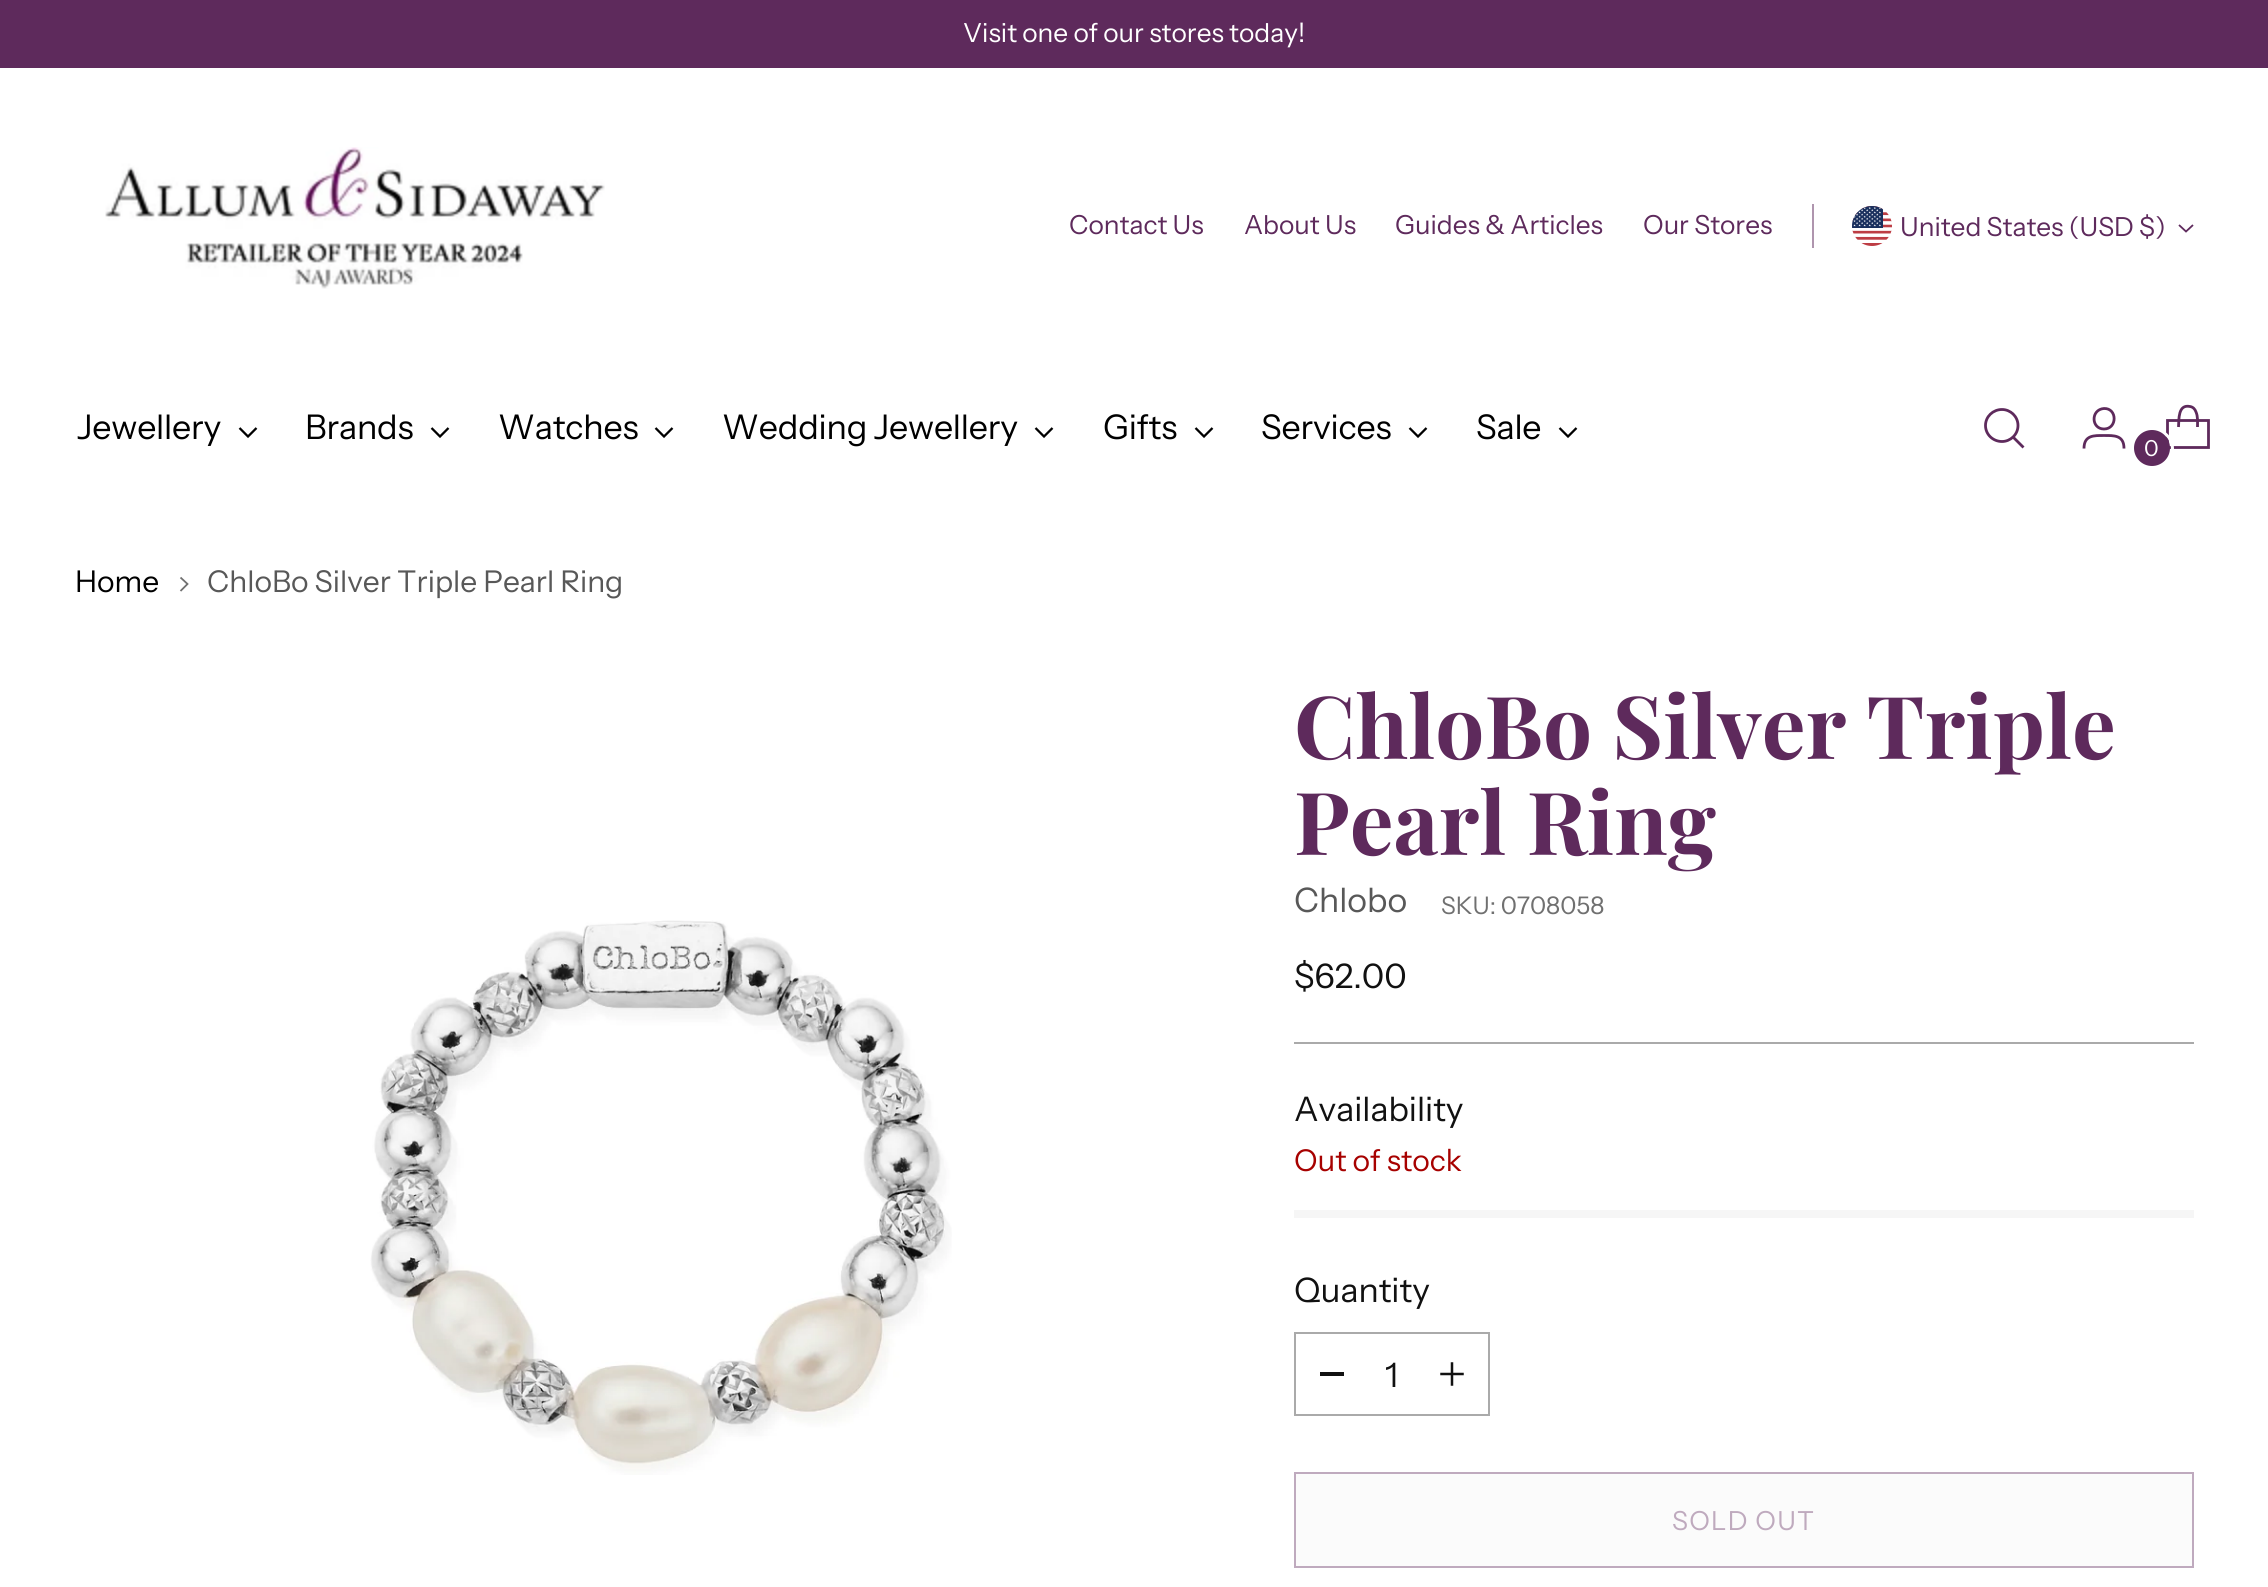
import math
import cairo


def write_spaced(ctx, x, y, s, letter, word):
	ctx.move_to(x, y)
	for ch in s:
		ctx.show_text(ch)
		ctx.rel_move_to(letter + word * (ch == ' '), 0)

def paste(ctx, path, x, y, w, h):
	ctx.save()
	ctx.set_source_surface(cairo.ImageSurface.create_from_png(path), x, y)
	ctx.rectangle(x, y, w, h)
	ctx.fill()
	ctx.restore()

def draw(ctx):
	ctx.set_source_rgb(1, 1, 1)
	ctx.paint()
	ctx.set_source_rgb(0.369, 0.165, 0.361)
	ctx.rectangle(0, 0, 2268, 68)
	ctx.fill()
	ctx.select_font_face('Instrument Sans')
	ctx.set_font_size(26.25)
	ctx.set_source_rgb(1, 1, 1)
	ctx.move_to(963, 42)
	ctx.show_text('Visit one of our stores today!')
	paste(ctx, 'media/1.png', 105, 147, 500, 142)
	ctx.set_source_rgb(0.369, 0.165, 0.361)
	for x, y, s in [
		(1069, 234, 'Contact Us'),
		(1244, 234, 'About Us'),
		(1395, 234, 'Guides & Articles'),
		(1643, 234, 'Our Stores'),
	]:
		ctx.move_to(x, y)
		ctx.show_text(s)
	ctx.set_source_rgb(0.686, 0.584, 0.682)
	ctx.rectangle(1812, 204, 2, 44)
	ctx.fill()
	paste(ctx, 'media/2.png', 1852, 206, 40, 40)
	ctx.set_source_rgb(0.369, 0.165, 0.361)
	ctx.move_to(1900, 236)
	ctx.show_text('United States (USD $)')
	ctx.new_path()
	ctx.move_to(2179, 225)
	ctx.line_to(2186, 231.5)
	ctx.line_to(2193, 225)
	ctx.set_line_width(1.8)
	ctx.stroke()
	ctx.set_font_size(34)
	ctx.set_source_rgb(0, 0, 0)
	write_spaced(ctx, 77, 439, 'Jewellery', -0.2, 0)
	ctx.new_path()
	ctx.move_to(239.5, 428)
	ctx.line_to(248, 436.5)
	ctx.line_to(256.5, 428)
	ctx.set_line_width(2.3)
	ctx.stroke()
	write_spaced(ctx, 305, 439, 'Brands', -0.2, 0)
	ctx.new_path()
	ctx.move_to(431.5, 428)
	ctx.line_to(440, 436.5)
	ctx.line_to(448.5, 428)
	ctx.stroke()
	write_spaced(ctx, 498, 439, 'Watches', -0.2, 0)
	ctx.new_path()
	ctx.move_to(655.5, 428)
	ctx.line_to(664, 436.5)
	ctx.line_to(672.5, 428)
	ctx.stroke()
	write_spaced(ctx, 722, 439, 'Wedding Jewellery', -0.2, 0)
	ctx.new_path()
	ctx.move_to(1035.5, 428)
	ctx.line_to(1044, 436.5)
	ctx.line_to(1052.5, 428)
	ctx.stroke()
	write_spaced(ctx, 1103, 439, 'Gifts', -0.2, 0)
	ctx.new_path()
	ctx.move_to(1195.5, 428)
	ctx.line_to(1204, 436.5)
	ctx.line_to(1212.5, 428)
	ctx.stroke()
	write_spaced(ctx, 1261, 439, 'Services', -0.2, 0)
	ctx.new_path()
	ctx.move_to(1409.5, 428)
	ctx.line_to(1418, 436.5)
	ctx.line_to(1426.5, 428)
	ctx.stroke()
	write_spaced(ctx, 1476, 439, 'Sale', -0.2, 0)
	ctx.new_path()
	ctx.move_to(1559.5, 428)
	ctx.line_to(1568, 436.5)
	ctx.line_to(1576.5, 428)
	ctx.stroke()
	ctx.new_path()
	ctx.move_to(2002, 441.5)
	ctx.curve_to(2010.5, 441.5, 2018, 434.5, 2018, 425.5)
	ctx.curve_to(2018, 416.5, 2010.5, 409.5, 2002, 409.5)
	ctx.curve_to(1993, 409.5, 1985.5, 416.5, 1985.5, 425.5)
	ctx.curve_to(1985.5, 434.5, 1993, 441.5, 2002, 441.5)
	ctx.close_path()
	ctx.set_source_rgb(0.369, 0.165, 0.361)
	ctx.set_line_width(2.8)
	ctx.set_line_cap(cairo.LINE_CAP_ROUND)
	ctx.stroke()
	ctx.new_path()
	ctx.move_to(2013.5, 437.5)
	ctx.line_to(2023.5, 447.5)
	ctx.set_line_cap(cairo.LINE_CAP_BUTT)
	ctx.stroke()
	ctx.new_path()
	ctx.move_to(2104, 429)
	ctx.curve_to(2117.5, 429, 2117.5, 408, 2104, 408.5)
	ctx.curve_to(2090.5, 409.5, 2091, 429, 2104, 429)
	ctx.close_path()
	ctx.move_to(2084, 448.5)
	ctx.curve_to(2084, 435, 2094, 435.5, 2104, 435.5)
	ctx.curve_to(2114, 435.5, 2124, 435, 2124, 448.5)
	ctx.stroke()
	ctx.new_path()
	ctx.move_to(2197.5, 427)
	ctx.curve_to(2197.5, 422, 2198, 416.5, 2196, 412)
	ctx.curve_to(2195, 409, 2193, 407, 2190, 406.5)
	ctx.curve_to(2178, 404, 2179, 419, 2178.5, 427)
	ctx.set_line_join(cairo.LINE_JOIN_BEVEL)
	ctx.stroke()
	ctx.new_path()
	ctx.move_to(2208.5, 447.5)
	ctx.line_to(2208.5, 420.5)
	ctx.line_to(2167.5, 420.5)
	ctx.line_to(2167.5, 447.5)
	ctx.close_path()
	ctx.set_line_join(cairo.LINE_JOIN_MITER)
	ctx.stroke()
	ctx.arc(2153, 449, 19.5, 0, 2 * math.pi)
	ctx.set_source_rgb(1, 1, 1)
	ctx.set_line_width(3)
	ctx.stroke()
	ctx.set_source_rgb(0.369, 0.165, 0.361)
	ctx.arc(2152, 448, 18, 0, 2 * math.pi)
	ctx.fill()
	ctx.set_font_size(22)
	ctx.set_source_rgb(1, 1, 1)
	ctx.move_to(2144, 456)
	ctx.show_text('0')
	ctx.set_font_size(30)
	ctx.set_source_rgb(0, 0, 0)
	ctx.move_to(75, 592)
	ctx.show_text('Home')
	ctx.new_path()
	ctx.move_to(180.5, 591)
	ctx.line_to(187.5, 584)
	ctx.line_to(180.5, 577.5)
	ctx.set_source_rgb(0.439, 0.439, 0.439)
	ctx.set_line_width(1.8)
	ctx.stroke()
	ctx.set_source_rgb(0.345, 0.345, 0.345)
	ctx.move_to(207, 592)
	ctx.show_text('ChloBo Silver Triple Pearl Ring')
	paste(ctx, 'media/3.png', 370, 920, 582, 555)
	ctx.set_source_rgb(0.667, 0.667, 0.667)
	ctx.rectangle(1294, 1042, 900, 2)
	ctx.fill()
	ctx.select_font_face('Playfair Display', cairo.FONT_SLANT_NORMAL, cairo.FONT_WEIGHT_BOLD)
	ctx.set_font_size(87)
	ctx.set_source_rgb(0.369, 0.165, 0.361)
	ctx.move_to(1294, 759)
	ctx.show_text('ChloBo Silver Triple')
	ctx.move_to(1294, 855)
	ctx.show_text('Pearl Ring')
	ctx.select_font_face('Instrument Sans')
	ctx.set_font_size(33.75)
	ctx.set_source_rgb(0.345, 0.345, 0.345)
	ctx.move_to(1294, 912)
	ctx.show_text('Chlobo')
	ctx.set_font_size(24.25)
	ctx.set_source_rgb(0.439, 0.439, 0.439)
	ctx.move_to(1441, 914)
	ctx.show_text('SKU: 0708058')
	ctx.set_font_size(33.75)
	ctx.set_source_rgb(0.067, 0.067, 0.067)
	ctx.move_to(1294, 988)
	ctx.show_text('$62.00')
	ctx.move_to(1294, 1121)
	ctx.show_text('Availability')
	ctx.set_font_size(30)
	ctx.set_source_rgb(0.655, 0.004, 0)
	ctx.move_to(1294, 1171)
	ctx.show_text('Out of stock')
	ctx.set_source_rgb(0.961, 0.961, 0.961)
	ctx.rectangle(1294, 1210, 900, 8)
	ctx.fill()
	ctx.set_font_size(33.75)
	ctx.set_source_rgb(0.067, 0.067, 0.067)
	ctx.move_to(1294, 1302)
	ctx.show_text('Quantity')
	ctx.rectangle(1295, 1333, 194, 82)
	ctx.set_source_rgb(0.667, 0.667, 0.667)
	ctx.set_line_width(2)
	ctx.stroke()
	ctx.set_source_rgb(0.067, 0.067, 0.067)
	ctx.rectangle(1320, 1372, 24, 4)
	ctx.fill()
	ctx.move_to(1385, 1387)
	ctx.show_text('1')
	paste(ctx, 'media/4.png', 1440, 1362, 24, 24)
	ctx.set_source_rgb(0.984, 0.984, 0.984)
	ctx.rectangle(1295, 1473, 898, 94)
	ctx.fill_preserve()
	ctx.set_source_rgb(0.749, 0.667, 0.745)
	ctx.stroke()
	ctx.set_font_size(26.25)
	write_spaced(ctx, 1672, 1530, 'SOLD OUT', 1.25, 0)


surface = cairo.ImageSurface(cairo.FORMAT_RGB24, 2268, 1587)
ctx = cairo.Context(surface)
options = cairo.FontOptions()
options.set_hint_metrics(cairo.HINT_METRICS_OFF)
options.set_hint_style(cairo.HINT_STYLE_NONE)
ctx.set_font_options(options)
ctx.set_miter_limit(4)
draw(ctx)
surface.write_to_png('image.png')
